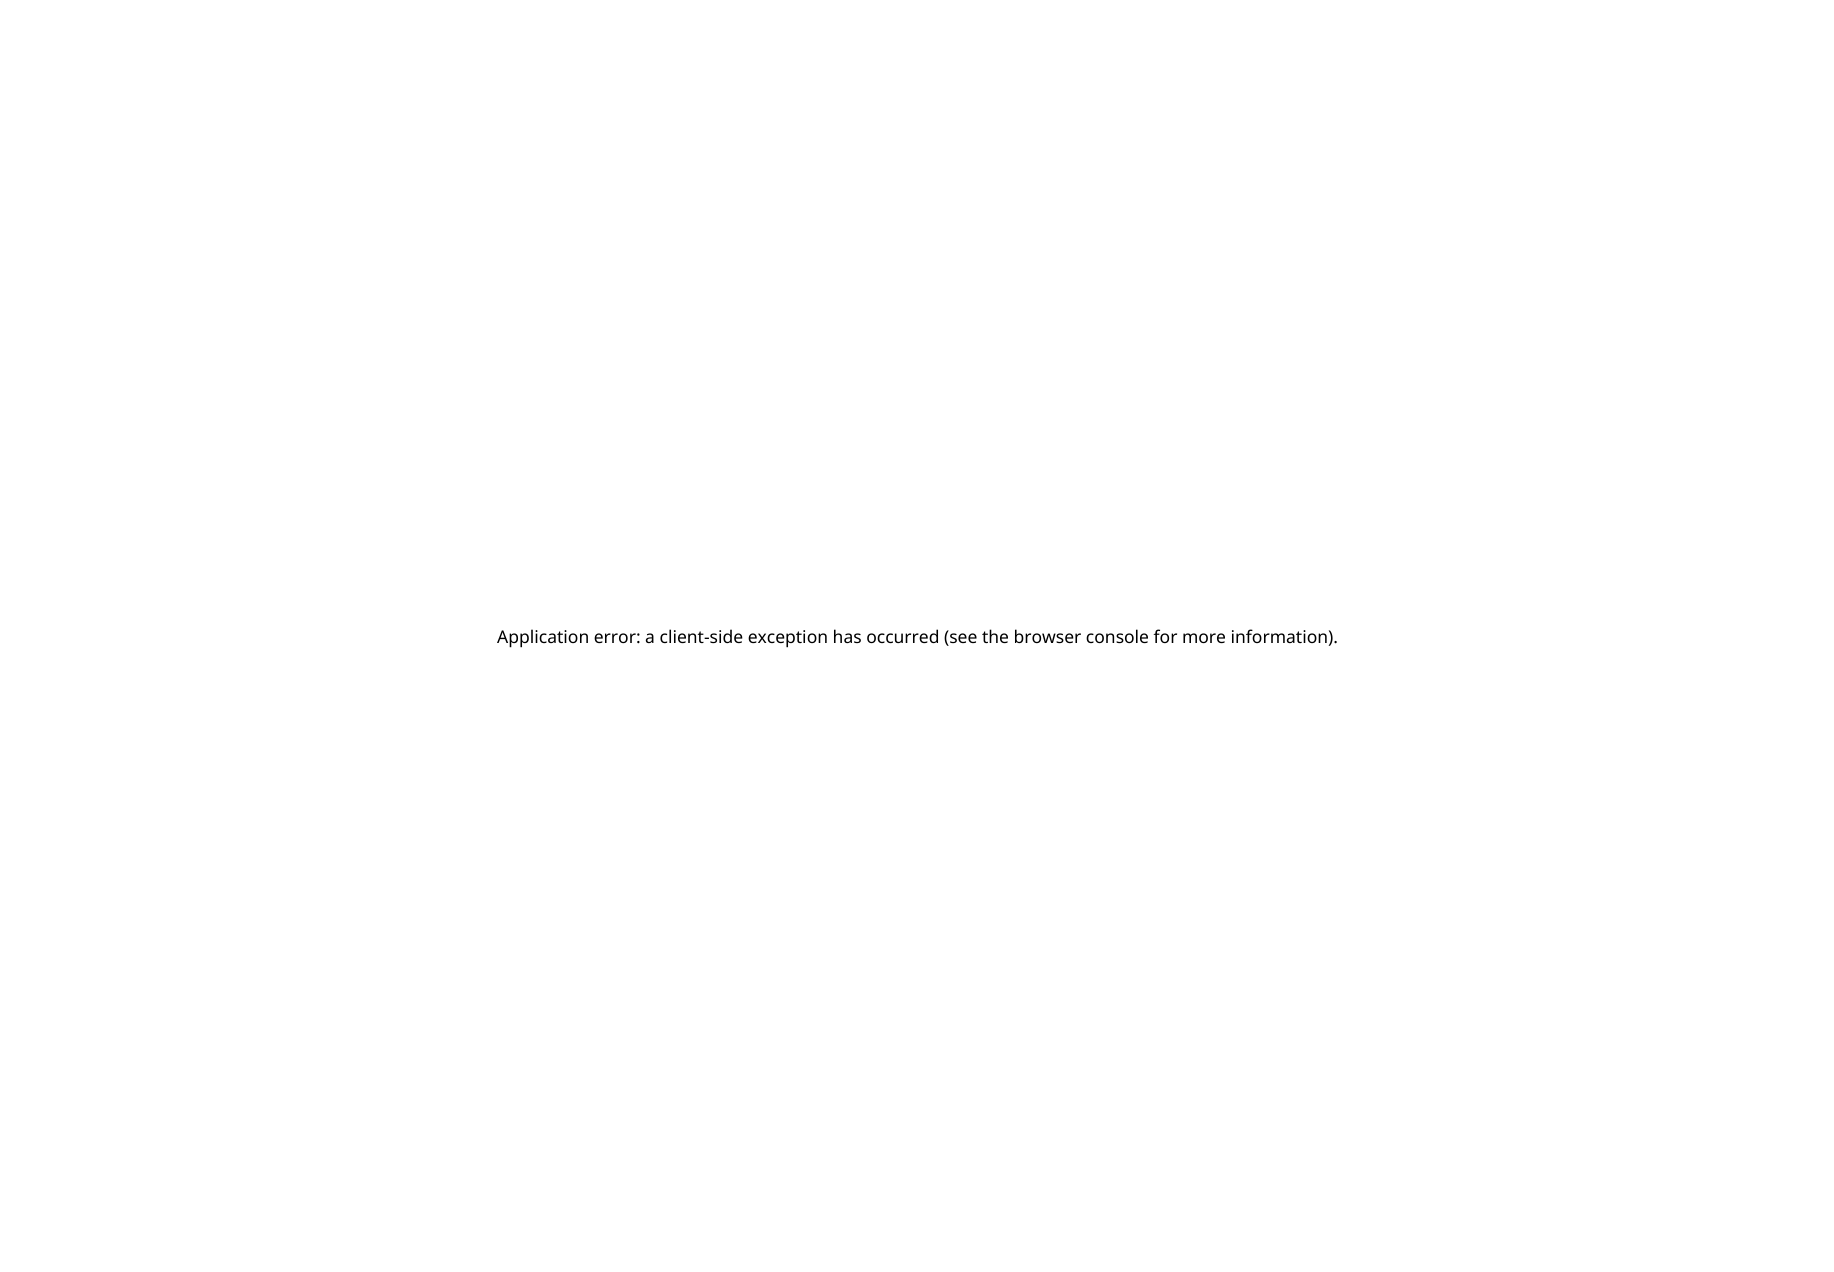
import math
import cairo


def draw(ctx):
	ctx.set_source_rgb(1, 1, 1)
	ctx.paint()
	ctx.select_font_face('Noto Sans')
	ctx.set_font_size(17.5)
	ctx.set_source_rgb(0, 0, 0)
	ctx.move_to(497, 643)
	ctx.show_text('Application error: a client-side exception has occurred (see the browser console for more information).')


surface = cairo.ImageSurface(cairo.FORMAT_RGB24, 1834, 1272)
ctx = cairo.Context(surface)
options = cairo.FontOptions()
options.set_hint_metrics(cairo.HINT_METRICS_OFF)
options.set_hint_style(cairo.HINT_STYLE_NONE)
ctx.set_font_options(options)
ctx.set_miter_limit(4)
draw(ctx)
surface.write_to_png('image.png')
